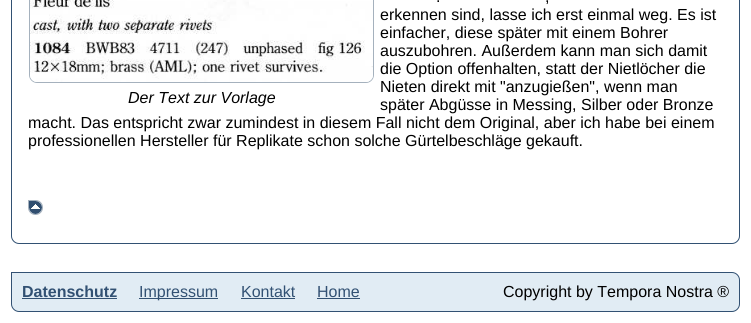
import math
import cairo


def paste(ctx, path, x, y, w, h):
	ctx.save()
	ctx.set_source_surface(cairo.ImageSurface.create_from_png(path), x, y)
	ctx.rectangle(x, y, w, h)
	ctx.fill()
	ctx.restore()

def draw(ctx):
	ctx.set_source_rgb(1, 1, 1)
	ctx.paint()
	ctx.new_path()
	ctx.move_to(11.5, -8.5)
	ctx.line_to(732, -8.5)
	ctx.curve_to(736, -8.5, 739.5, -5, 739.5, -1)
	ctx.line_to(739.5, 236)
	ctx.curve_to(739.5, 240, 736, 243.5, 732, 243.5)
	ctx.line_to(19, 243.5)
	ctx.curve_to(15, 243.5, 11.5, 240, 11.5, 236)
	ctx.close_path()
	ctx.set_source_rgb(0.196, 0.318, 0.451)
	ctx.set_line_width(1)
	ctx.stroke()
	ctx.select_font_face('Liberation Sans')
	ctx.set_font_size(16)
	ctx.set_source_rgb(0, 0, 0)
	for x, y, s in [
		(436, 2, '.'),
		(545, 2, ','),
		(380, 20, 'erkennen sind, lasse ich erst einmal weg. Es ist'),
		(380, 38, 'einfacher, diese später mit einem Bohrer'),
		(380, 56, 'auszubohren. Außerdem kann man sich damit'),
		(380, 74, 'die Option offenhalten, statt der Nietlöcher die'),
		(380, 92, 'Nieten direkt mit "anzugießen", wenn man'),
		(380, 110, 'später Abgüsse in Messing, Silber oder Bronze'),
		(28, 128, 'macht. Das entspricht zwar zumindest in diesem Fall nicht dem Original, aber ich habe bei einem'),
		(28, 146, 'professionellen Hersteller für Replikate schon solche Gürtelbeschläge gekauft.'),
	]:
		ctx.move_to(x, y)
		ctx.show_text(s)
	ctx.new_path()
	ctx.move_to(29.5, -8.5)
	ctx.line_to(366, -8.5)
	ctx.curve_to(370, -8.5, 373.5, -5, 373.5, -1)
	ctx.line_to(373.5, 75)
	ctx.curve_to(373.5, 79, 370, 82.5, 366, 82.5)
	ctx.line_to(37, 82.5)
	ctx.curve_to(33, 82.5, 29.5, 79, 29.5, 75)
	ctx.close_path()
	ctx.set_source_rgb(0.647, 0.694, 0.741)
	ctx.stroke()
	paste(ctx, 'media/1.png', 30, 0, 343, 82)
	ctx.select_font_face('Liberation Sans', cairo.FONT_SLANT_ITALIC)
	ctx.set_source_rgb(0, 0, 0)
	ctx.move_to(128, 103)
	ctx.show_text('Der Text zur Vorlage')
	ctx.new_path()
	ctx.move_to(28.5, 200.5)
	ctx.line_to(35.5, 200.5)
	ctx.curve_to(39.5, 200.5, 42.5, 203.5, 42.5, 207.5)
	ctx.curve_to(42.5, 211.5, 39.5, 214.5, 35.5, 214.5)
	ctx.curve_to(31.5, 214.5, 28.5, 211.5, 28.5, 207.5)
	ctx.close_path()
	ctx.set_source_rgb(0.647, 0.694, 0.741)
	ctx.stroke()
	paste(ctx, 'media/2.png', 29, 201, 13, 13)
	ctx.set_source_rgb(0.882, 0.922, 0.957)
	ctx.new_path()
	ctx.move_to(11.5, 272.5)
	ctx.line_to(732, 272.5)
	ctx.curve_to(736, 272.5, 739.5, 276, 739.5, 280)
	ctx.line_to(739.5, 304)
	ctx.curve_to(739.5, 308, 736, 311.5, 732, 311.5)
	ctx.line_to(19, 311.5)
	ctx.curve_to(15, 311.5, 11.5, 308, 11.5, 304)
	ctx.close_path()
	ctx.fill_preserve()
	ctx.set_source_rgb(0.196, 0.318, 0.451)
	ctx.stroke()
	ctx.select_font_face('Liberation Sans', cairo.FONT_SLANT_NORMAL, cairo.FONT_WEIGHT_BOLD)
	ctx.move_to(22, 297)
	ctx.show_text('Datenschutz')
	ctx.rectangle(22, 298, 95, 1)
	ctx.fill()
	ctx.rectangle(139, 298, 79, 1)
	ctx.fill()
	ctx.select_font_face('Liberation Sans')
	ctx.move_to(139, 297)
	ctx.show_text('Impressum')
	ctx.move_to(241, 297)
	ctx.show_text('Kontakt')
	ctx.rectangle(241, 298, 54, 1)
	ctx.fill()
	ctx.move_to(317, 297)
	ctx.show_text('Home')
	ctx.rectangle(317, 298, 43, 1)
	ctx.fill()
	ctx.set_source_rgb(0, 0, 0)
	ctx.move_to(503, 297)
	ctx.show_text('Copyright by Tempora Nostra ®')


surface = cairo.ImageSurface(cairo.FORMAT_RGB24, 751, 323)
ctx = cairo.Context(surface)
options = cairo.FontOptions()
options.set_hint_metrics(cairo.HINT_METRICS_OFF)
options.set_hint_style(cairo.HINT_STYLE_NONE)
ctx.set_font_options(options)
ctx.set_miter_limit(4)
draw(ctx)
surface.write_to_png('image.png')
